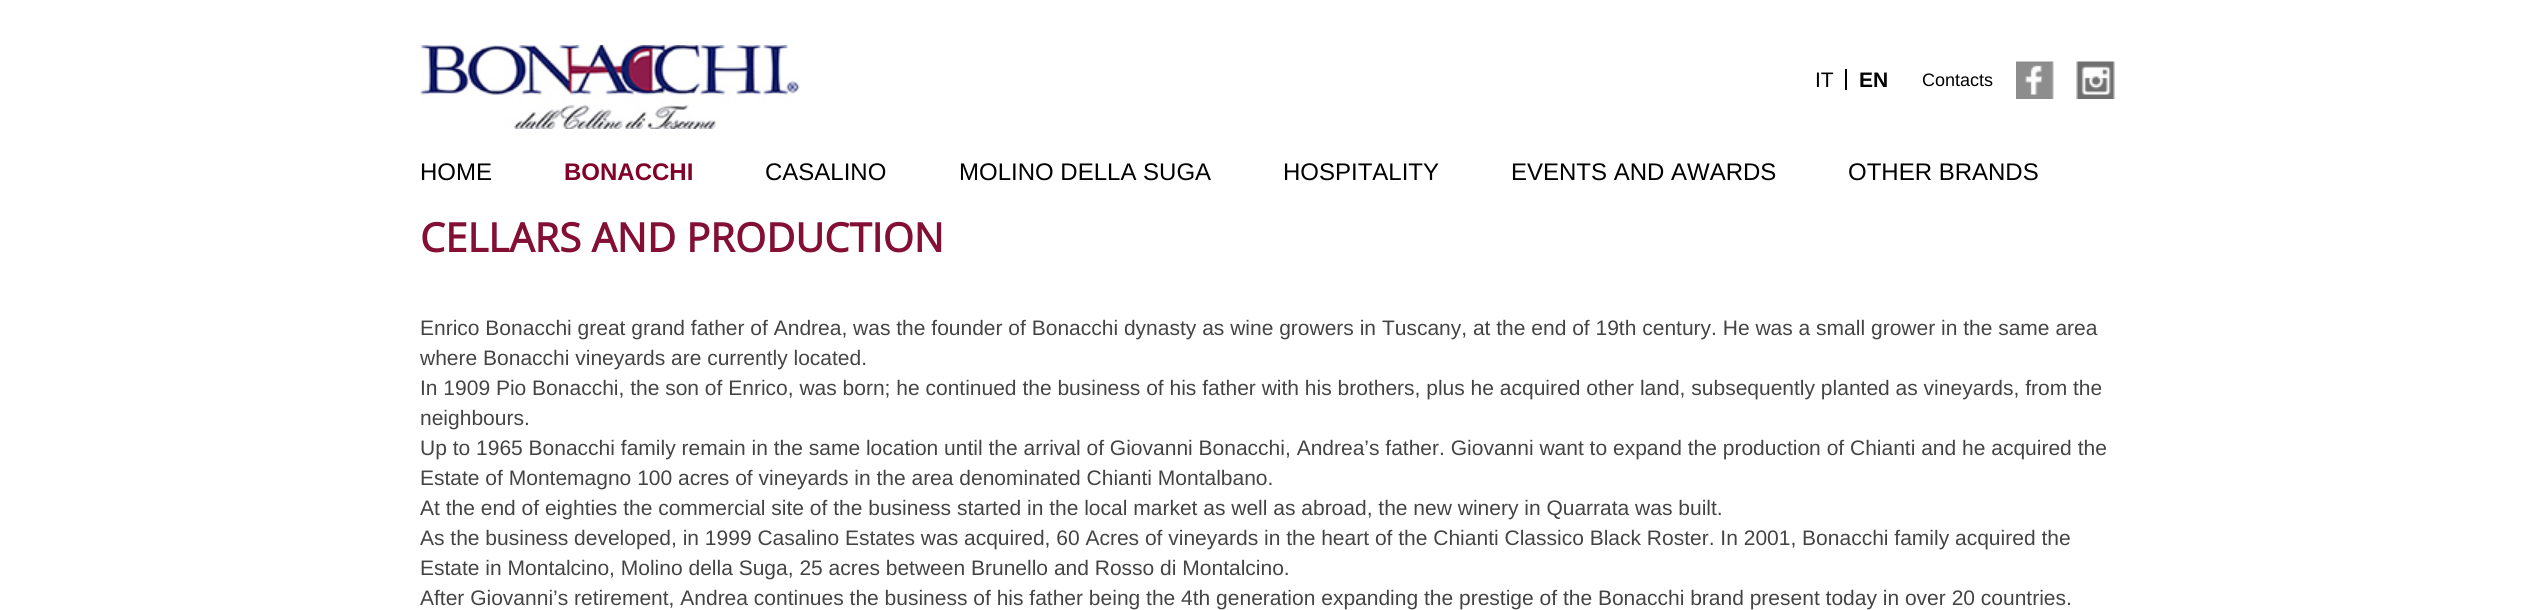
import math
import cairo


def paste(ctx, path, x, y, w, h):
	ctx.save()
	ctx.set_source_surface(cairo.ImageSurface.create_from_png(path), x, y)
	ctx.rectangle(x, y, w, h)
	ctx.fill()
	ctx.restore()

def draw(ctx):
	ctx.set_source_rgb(1, 1, 1)
	ctx.paint()
	paste(ctx, 'media/1.png', 420, 45, 380, 84)
	ctx.set_source_rgb(0, 0, 0)
	ctx.rectangle(1845, 69, 2, 21)
	ctx.fill()
	ctx.select_font_face('Liberation Sans')
	ctx.set_font_size(21)
	ctx.move_to(1815, 87)
	ctx.show_text('IT')
	ctx.select_font_face('Liberation Sans', cairo.FONT_SLANT_NORMAL, cairo.FONT_WEIGHT_BOLD)
	ctx.move_to(1859, 87)
	ctx.show_text('EN')
	ctx.select_font_face('Liberation Sans')
	ctx.set_font_size(18)
	ctx.move_to(1922, 86)
	ctx.show_text('Contacts')
	paste(ctx, 'media/2.png', 2016, 61, 38, 38)
	paste(ctx, 'media/3.png', 2076, 61, 39, 38)
	ctx.set_font_size(24)
	ctx.move_to(420, 180)
	ctx.show_text('HOME')
	ctx.select_font_face('Liberation Sans', cairo.FONT_SLANT_NORMAL, cairo.FONT_WEIGHT_BOLD)
	ctx.set_source_rgb(0.51, 0.004, 0.157)
	ctx.move_to(564, 180)
	ctx.show_text('BONACCHI')
	ctx.select_font_face('Liberation Sans')
	ctx.set_source_rgb(0, 0, 0)
	for x, y, s in [
		(765, 180, 'CASALINO'),
		(959, 180, 'MOLINO DELLA SUGA'),
		(1283, 180, 'HOSPITALITY'),
		(1511, 180, 'EVENTS AND AWARDS'),
		(1848, 180, 'OTHER BRANDS'),
	]:
		ctx.move_to(x, y)
		ctx.show_text(s)
	ctx.select_font_face('Open Sans', cairo.FONT_SLANT_NORMAL, cairo.FONT_WEIGHT_BOLD)
	ctx.set_font_size(40)
	ctx.set_source_rgb(0.514, 0.059, 0.204)
	ctx.move_to(420, 252)
	ctx.show_text('CELLARS AND PRODUCTION')
	ctx.select_font_face('Liberation Sans')
	ctx.set_font_size(21)
	ctx.set_source_rgb(0.267, 0.267, 0.267)
	for x, y, s in [
		(420, 335, 'Enrico Bonacchi great grand father of Andrea, was the founder of Bonacchi dynasty as wine growers in Tuscany, at the end of 19th century. He was a small grower in the same area'),
		(420, 365, 'where Bonacchi vineyards are currently located.'),
		(420, 395, 'In 1909 Pio Bonacchi, the son of Enrico, was born; he continued the business of his father with his brothers, plus he acquired other land, subsequently planted as vineyards, from the'),
		(420, 425, 'neighbours.'),
		(420, 455, 'Up to 1965 Bonacchi family remain in the same location until the arrival of Giovanni Bonacchi, Andrea’s father. Giovanni want to expand the production of Chianti and he acquired the'),
		(420, 485, 'Estate of Montemagno 100 acres of vineyards in the area denominated Chianti Montalbano.'),
		(420, 515, 'At the end of eighties the commercial site of the business started in the local market as well as abroad, the new winery in Quarrata was built.'),
		(420, 545, 'As the business developed, in 1999 Casalino Estates was acquired, 60 Acres of vineyards in the heart of the Chianti Classico Black Roster. In 2001, Bonacchi family acquired the'),
		(420, 575, 'Estate in Montalcino, Molino della Suga, 25 acres between Brunello and Rosso di Montalcino.'),
		(420, 605, 'After Giovanni’s retirement, Andrea continues the business of his father being the 4th generation expanding the prestige of the Bonacchi brand present today in over 20 countries.'),
	]:
		ctx.move_to(x, y)
		ctx.show_text(s)


surface = cairo.ImageSurface(cairo.FORMAT_RGB24, 2535, 610)
ctx = cairo.Context(surface)
options = cairo.FontOptions()
options.set_hint_metrics(cairo.HINT_METRICS_OFF)
options.set_hint_style(cairo.HINT_STYLE_NONE)
ctx.set_font_options(options)
ctx.set_miter_limit(4)
draw(ctx)
surface.write_to_png('image.png')
